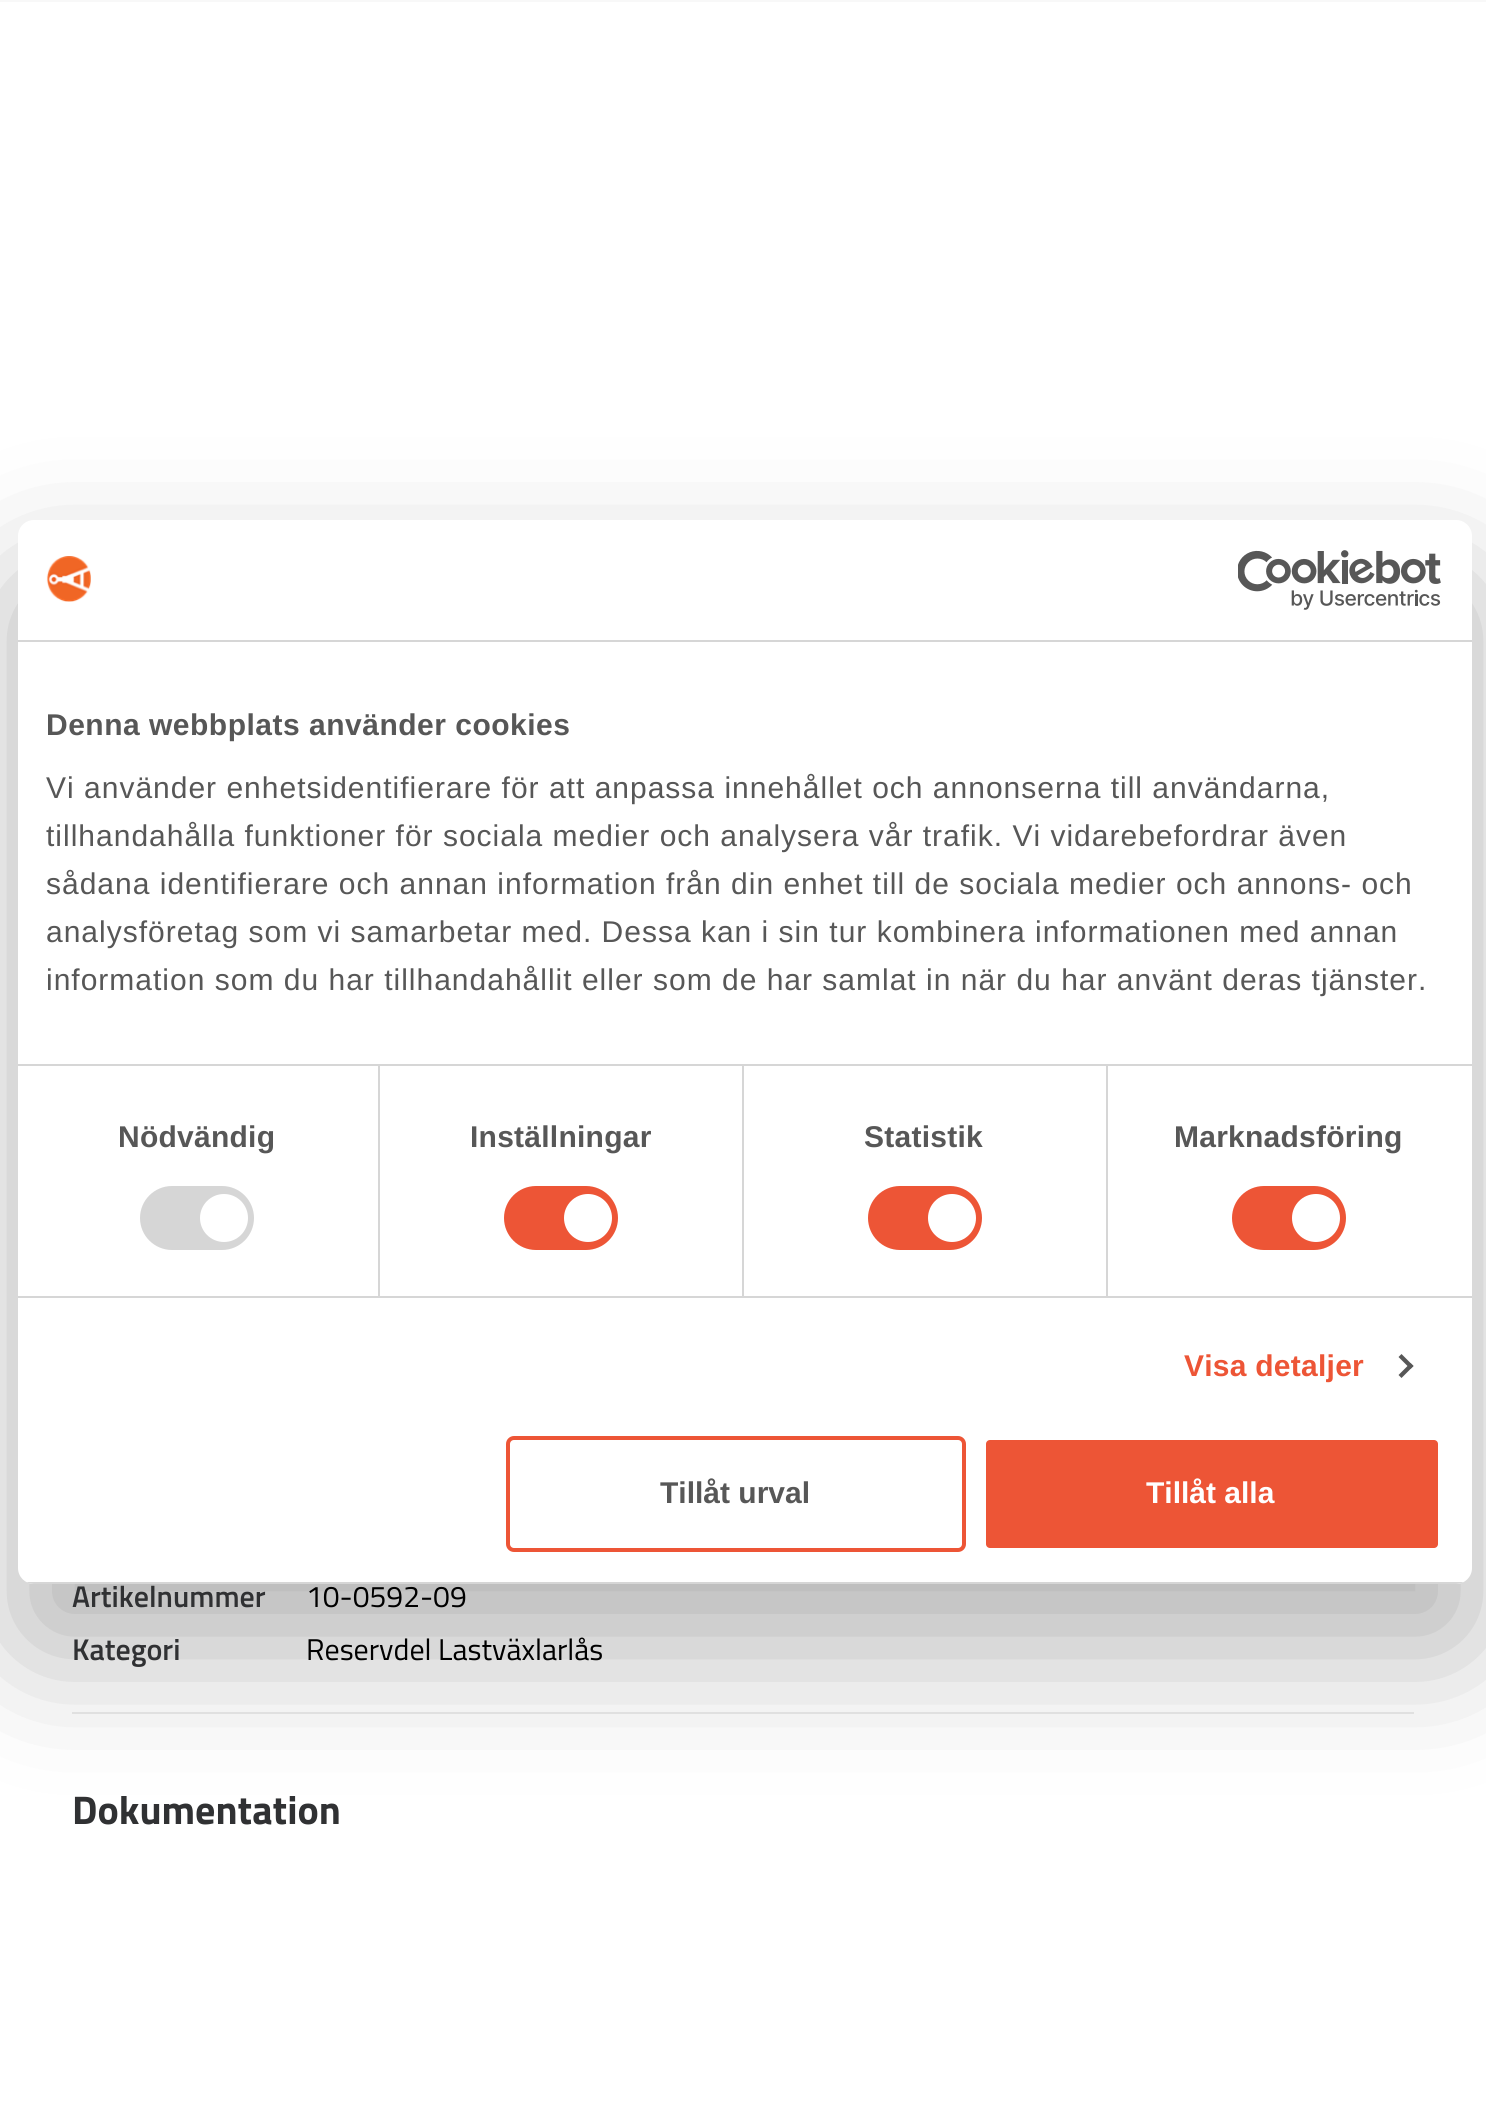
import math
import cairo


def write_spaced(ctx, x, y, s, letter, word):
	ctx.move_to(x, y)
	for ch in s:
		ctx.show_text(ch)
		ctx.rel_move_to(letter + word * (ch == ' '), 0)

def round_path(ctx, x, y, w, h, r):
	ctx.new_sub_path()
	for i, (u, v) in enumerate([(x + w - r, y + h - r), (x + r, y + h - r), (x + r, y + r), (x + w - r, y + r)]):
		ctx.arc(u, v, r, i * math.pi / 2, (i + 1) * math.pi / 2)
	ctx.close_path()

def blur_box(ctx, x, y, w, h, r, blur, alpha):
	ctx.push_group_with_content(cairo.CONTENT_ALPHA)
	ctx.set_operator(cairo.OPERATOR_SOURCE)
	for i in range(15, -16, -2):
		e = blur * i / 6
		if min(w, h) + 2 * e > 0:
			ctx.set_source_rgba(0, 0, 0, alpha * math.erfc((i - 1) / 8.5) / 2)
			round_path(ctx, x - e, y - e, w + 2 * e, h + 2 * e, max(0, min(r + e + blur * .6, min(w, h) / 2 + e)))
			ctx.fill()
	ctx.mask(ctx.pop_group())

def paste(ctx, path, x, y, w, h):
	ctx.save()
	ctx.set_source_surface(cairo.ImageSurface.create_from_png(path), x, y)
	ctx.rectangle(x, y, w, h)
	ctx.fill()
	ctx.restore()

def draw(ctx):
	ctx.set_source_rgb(0.969, 0.969, 0.969)
	ctx.paint()
	ctx.set_source_rgb(1, 1, 1)
	ctx.rectangle(0, 2, 1486, 2100)
	ctx.fill()
	ctx.set_source_rgb(0.918, 0.918, 0.918)
	ctx.rectangle(72, 1712, 1342, 2)
	ctx.fill()
	ctx.set_source_rgb(0, 0, 0)
	blur_box(ctx, 18, 584, 1454, 1064, 16, 68, 0.3)
	ctx.set_source_rgb(1, 1, 1)
	round_path(ctx, 18, 520, 1454, 1064, 16)
	ctx.fill()
	ctx.set_source_rgb(0.839, 0.839, 0.839)
	ctx.rectangle(18, 640, 1454, 2)
	ctx.fill()
	paste(ctx, 'media/1.png', 46, 556, 45, 46)
	paste(ctx, 'media/2.png', 1238, 550, 203, 60)
	ctx.rectangle(18, 1064, 1454, 2)
	ctx.fill()
	ctx.select_font_face('Liberation Sans', cairo.FONT_SLANT_NORMAL, cairo.FONT_WEIGHT_BOLD)
	ctx.set_font_size(30)
	ctx.set_source_rgb(0.341, 0.341, 0.341)
	write_spaced(ctx, 46, 735, 'Denna webbplats använder cookies', 0.5, 0)
	ctx.select_font_face('Liberation Sans')
	for x, y, s in [
		(46, 798, 'Vi använder enhetsidentifierare för att anpassa innehållet och annonserna till användarna,'),
		(46, 846, 'tillhandahålla funktioner för sociala medier och analysera vår trafik. Vi vidarebefordrar även'),
		(46, 894, 'sådana identifierare och annan information från din enhet till de sociala medier och annons- och'),
		(46, 942, 'analysföretag som vi samarbetar med. Dessa kan i sin tur kombinera informationen med annan'),
		(46, 990, 'information som du har tillhandahållit eller som de har samlat in när du har använt deras tjänster.'),
	]:
		write_spaced(ctx, x, y, s, 1, 0)
	ctx.set_source_rgb(0.839, 0.839, 0.839)
	ctx.rectangle(18, 1296, 1454, 2)
	ctx.fill()
	ctx.rectangle(378, 1066, 2, 230)
	ctx.fill()
	ctx.select_font_face('Liberation Sans', cairo.FONT_SLANT_NORMAL, cairo.FONT_WEIGHT_BOLD)
	ctx.set_source_rgb(0.341, 0.341, 0.341)
	write_spaced(ctx, 118, 1147, 'Nödvändig', 0.25, 0)
	ctx.set_source_rgb(0.839, 0.839, 0.839)
	round_path(ctx, 140, 1186, 114, 64, 32)
	ctx.fill()
	ctx.set_source_rgb(1, 1, 1)
	ctx.arc(224, 1218, 24, 0, 2 * math.pi)
	ctx.fill()
	ctx.set_source_rgb(0.839, 0.839, 0.839)
	ctx.rectangle(742, 1066, 2, 230)
	ctx.fill()
	ctx.set_source_rgb(0.341, 0.341, 0.341)
	write_spaced(ctx, 470, 1147, 'Inställningar', 0.25, 0)
	ctx.set_source_rgb(0.929, 0.333, 0.212)
	round_path(ctx, 504, 1186, 114, 64, 32)
	ctx.fill()
	ctx.set_source_rgb(1, 1, 1)
	ctx.arc(588, 1218, 24, 0, 2 * math.pi)
	ctx.fill()
	ctx.set_source_rgb(0.839, 0.839, 0.839)
	ctx.rectangle(1106, 1066, 2, 230)
	ctx.fill()
	ctx.set_source_rgb(0.341, 0.341, 0.341)
	write_spaced(ctx, 864, 1147, 'Statistik', 0.25, 0)
	ctx.set_source_rgb(0.929, 0.333, 0.212)
	round_path(ctx, 868, 1186, 114, 64, 32)
	ctx.fill()
	ctx.set_source_rgb(1, 1, 1)
	ctx.arc(952, 1218, 24, 0, 2 * math.pi)
	ctx.fill()
	ctx.set_source_rgb(0.341, 0.341, 0.341)
	write_spaced(ctx, 1174, 1147, 'Marknadsföring', 0.25, 0)
	ctx.set_source_rgb(0.929, 0.333, 0.212)
	round_path(ctx, 1232, 1186, 114, 64, 32)
	ctx.fill()
	ctx.set_source_rgb(1, 1, 1)
	ctx.arc(1316, 1218, 24, 0, 2 * math.pi)
	ctx.fill()
	ctx.set_source_rgb(0.929, 0.333, 0.212)
	write_spaced(ctx, 1184, 1376, 'Visa detaljer', 0.25, 0)
	ctx.set_source_rgb(0.341, 0.341, 0.341)
	ctx.new_path()
	ctx.move_to(1401.5, 1354)
	ctx.line_to(1413.5, 1366)
	ctx.line_to(1410.5, 1369)
	ctx.line_to(1398.5, 1357)
	ctx.close_path()
	ctx.fill()
	ctx.new_path()
	ctx.move_to(1410.5, 1363)
	ctx.line_to(1413.5, 1366)
	ctx.line_to(1401.5, 1378)
	ctx.line_to(1398.5, 1375)
	ctx.close_path()
	ctx.fill()
	ctx.save()
	round_path(ctx, 18, 520, 1454, 1064, 16)
	ctx.clip()
	ctx.set_source_rgb(0.839, 0.839, 0.839)
	ctx.rectangle(18, 1582, 1454, 2)
	ctx.fill()
	ctx.restore()
	round_path(ctx, 508, 1438, 456, 112, 6)
	ctx.set_source_rgb(0.929, 0.333, 0.212)
	ctx.set_line_width(4)
	ctx.stroke()
	ctx.set_source_rgb(0.341, 0.341, 0.341)
	ctx.move_to(660, 1503)
	ctx.show_text('Tillåt urval')
	ctx.set_source_rgb(0.929, 0.333, 0.212)
	round_path(ctx, 984, 1438, 456, 112, 6)
	ctx.fill_preserve()
	ctx.set_source_rgb(1, 1, 1)
	ctx.stroke()
	ctx.move_to(1146, 1503)
	ctx.show_text('Tillåt alla')
	ctx.select_font_face('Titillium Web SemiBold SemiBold')
	ctx.set_source_rgb(0.188, 0.192, 0.2)
	ctx.move_to(72, 1607)
	ctx.show_text('Artikelnummer')
	ctx.select_font_face('Titillium Web')
	ctx.set_source_rgb(0, 0, 0)
	ctx.move_to(306, 1607)
	ctx.show_text('10-0592-09')
	ctx.select_font_face('Titillium Web SemiBold SemiBold')
	ctx.set_source_rgb(0.188, 0.192, 0.2)
	ctx.move_to(72, 1660)
	ctx.show_text('Kategori')
	ctx.select_font_face('Titillium Web')
	ctx.set_source_rgb(0, 0, 0)
	ctx.move_to(306, 1660)
	ctx.show_text('Reservdel Lastväxlarlås')
	ctx.select_font_face('Titillium Web', cairo.FONT_SLANT_NORMAL, cairo.FONT_WEIGHT_BOLD)
	ctx.set_font_size(40)
	ctx.set_source_rgb(0.188, 0.192, 0.2)
	ctx.move_to(72, 1824)
	ctx.show_text('Dokumentation')


surface = cairo.ImageSurface(cairo.FORMAT_RGB24, 1486, 2102)
ctx = cairo.Context(surface)
options = cairo.FontOptions()
options.set_hint_metrics(cairo.HINT_METRICS_OFF)
options.set_hint_style(cairo.HINT_STYLE_NONE)
ctx.set_font_options(options)
ctx.set_miter_limit(4)
draw(ctx)
surface.write_to_png('image.png')
